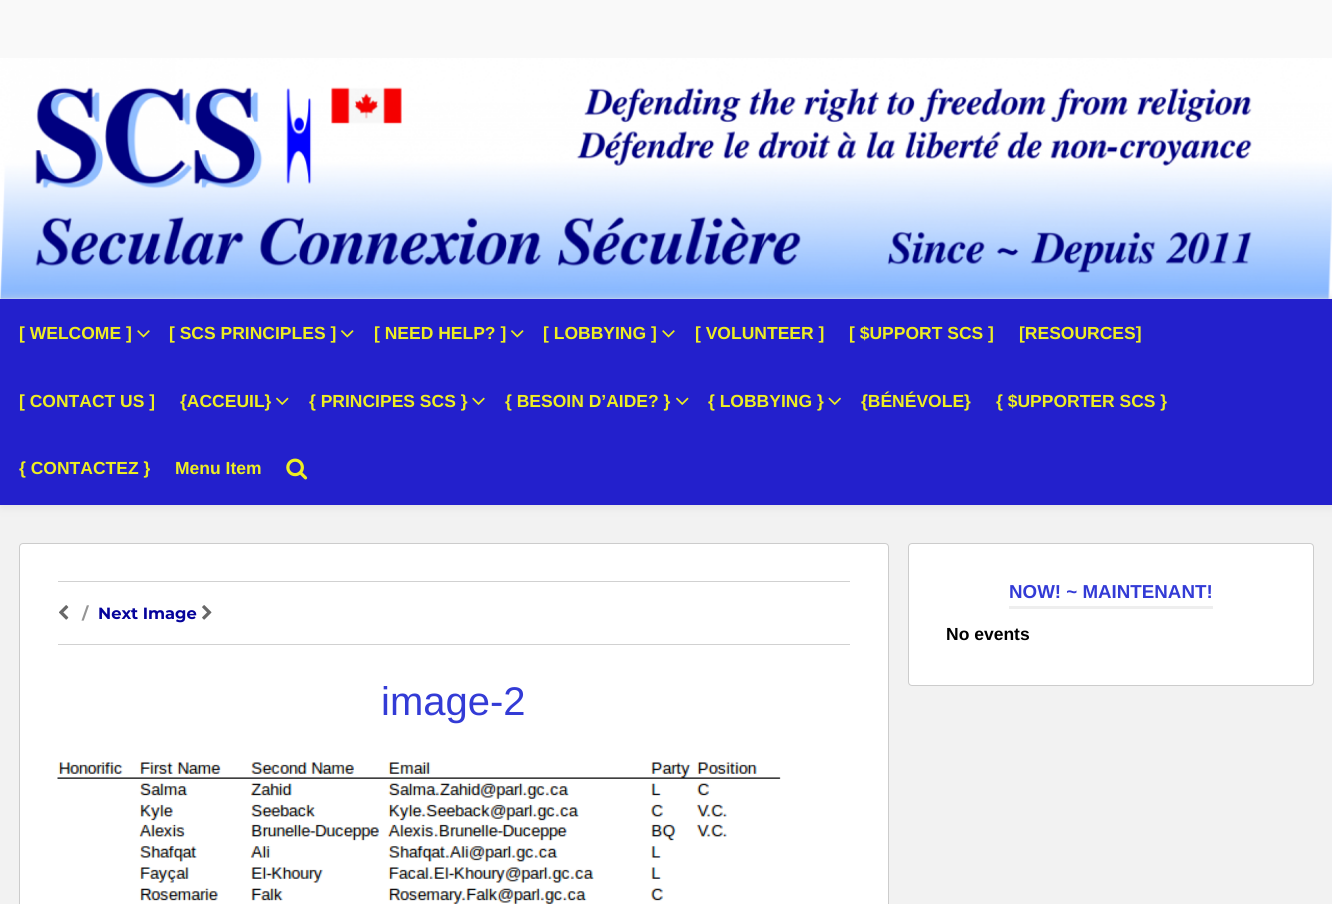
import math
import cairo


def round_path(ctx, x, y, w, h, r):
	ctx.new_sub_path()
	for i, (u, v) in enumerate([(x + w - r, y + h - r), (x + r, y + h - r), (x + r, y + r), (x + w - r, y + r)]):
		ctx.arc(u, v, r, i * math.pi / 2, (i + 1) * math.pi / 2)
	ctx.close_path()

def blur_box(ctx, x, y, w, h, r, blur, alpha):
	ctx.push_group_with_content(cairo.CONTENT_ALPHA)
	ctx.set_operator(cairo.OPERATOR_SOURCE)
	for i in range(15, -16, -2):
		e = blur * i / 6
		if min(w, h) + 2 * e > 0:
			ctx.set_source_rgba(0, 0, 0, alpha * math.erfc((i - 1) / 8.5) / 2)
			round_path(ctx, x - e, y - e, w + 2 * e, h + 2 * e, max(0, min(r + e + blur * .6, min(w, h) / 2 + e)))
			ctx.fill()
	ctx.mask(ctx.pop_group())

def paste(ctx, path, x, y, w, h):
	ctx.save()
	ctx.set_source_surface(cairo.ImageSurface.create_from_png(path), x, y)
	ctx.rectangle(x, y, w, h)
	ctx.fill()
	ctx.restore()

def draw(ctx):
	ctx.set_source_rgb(0.949, 0.949, 0.949)
	ctx.paint()
	ctx.set_source_rgb(0.976, 0.976, 0.976)
	ctx.rectangle(0, 0, 1332, 299)
	ctx.fill()
	paste(ctx, 'media/1.png', 0, 58, 1332, 241)
	ctx.set_source_rgb(0.867, 0.867, 0.867)
	blur_box(ctx, 1, 300, 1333, 206, 0, 5, 1)
	ctx.set_source_rgb(0.137, 0.125, 0.8)
	ctx.rectangle(0, 299, 1332, 206)
	ctx.fill()
	ctx.select_font_face('Liberation Sans', cairo.FONT_SLANT_NORMAL, cairo.FONT_WEIGHT_BOLD)
	ctx.set_font_size(17.5)
	ctx.set_source_rgb(0.933, 0.933, 0.133)
	ctx.move_to(19, 339)
	ctx.show_text('[ WELCOME ]')
	paste(ctx, 'media/2.png', 137, 330, 13, 8)
	ctx.move_to(169, 339)
	ctx.show_text('[ SCS PRINCIPLES ]')
	paste(ctx, 'media/3.png', 341, 330, 13, 8)
	ctx.move_to(374, 339)
	ctx.show_text('[ NEED HELP? ]')
	paste(ctx, 'media/3.png', 511, 330, 13, 8)
	ctx.move_to(543, 339)
	ctx.show_text('[ LOBBYING ]')
	paste(ctx, 'media/2.png', 662, 330, 13, 8)
	for x, y, s in [
		(695, 339, '[ VOLUNTEER ]'),
		(849, 339, '[ $UPPORT SCS ]'),
		(1019, 339, '[RESOURCES]'),
		(19, 407, '[ CONTACT US ]'),
		(180, 407, '{ACCEUIL}'),
	]:
		ctx.move_to(x, y)
		ctx.show_text(s)
	paste(ctx, 'media/4.png', 276, 397, 13, 8)
	ctx.move_to(309, 407)
	ctx.show_text('{ PRINCIPES SCS }')
	paste(ctx, 'media/5.png', 472, 397, 13, 8)
	ctx.move_to(505, 407)
	ctx.show_text('{ BESOIN D’AIDE? }')
	paste(ctx, 'media/4.png', 676, 397, 13, 8)
	ctx.move_to(708, 407)
	ctx.show_text('{ LOBBYING }')
	paste(ctx, 'media/6.png', 828, 397, 13, 8)
	for x, y, s in [
		(861, 407, '{BÉNÉVOLE}'),
		(996, 407, '{ $UPPORTER SCS }'),
		(19, 474, '{ CONTACTEZ }'),
		(175, 474, 'Menu Item'),
	]:
		ctx.move_to(x, y)
		ctx.show_text(s)
	paste(ctx, 'media/7.png', 286, 458, 22, 22)
	ctx.set_source_rgb(1, 1, 1)
	round_path(ctx, 19.5, 543.5, 869, 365, 3.5)
	ctx.fill_preserve()
	ctx.set_source_rgb(0.8, 0.8, 0.8)
	ctx.set_line_width(1)
	ctx.stroke()
	ctx.set_source_rgb(0.82, 0.82, 0.82)
	ctx.rectangle(58, 581, 792, 1)
	ctx.fill()
	ctx.rectangle(58, 644, 792, 1)
	ctx.fill()
	paste(ctx, 'media/8.png', 59, 605, 10, 15)
	ctx.select_font_face('Montserrat', cairo.FONT_SLANT_NORMAL, cairo.FONT_WEIGHT_BOLD)
	ctx.set_font_size(16.25)
	ctx.set_source_rgb(0.584, 0.584, 0.584)
	ctx.move_to(82, 619)
	ctx.show_text('/')
	ctx.set_source_rgb(0.02, 0.012, 0.608)
	ctx.move_to(98, 619)
	ctx.show_text('Next Image')
	paste(ctx, 'media/9.png', 202, 605, 10, 15)
	ctx.select_font_face('Liberation Sans')
	ctx.set_font_size(40)
	ctx.set_source_rgb(0.2, 0.231, 0.839)
	ctx.move_to(381, 715)
	ctx.show_text('image-2')
	paste(ctx, 'media/10.png', 57, 762, 724, 142)
	ctx.set_source_rgb(1, 1, 1)
	round_path(ctx, 908.5, 543.5, 405, 142, 3.5)
	ctx.fill_preserve()
	ctx.set_source_rgb(0.8, 0.8, 0.8)
	ctx.stroke()
	ctx.select_font_face('Liberation Sans', cairo.FONT_SLANT_NORMAL, cairo.FONT_WEIGHT_BOLD)
	ctx.set_font_size(18.75)
	ctx.set_source_rgb(0.2, 0.231, 0.839)
	ctx.move_to(1009, 598)
	ctx.show_text('NOW! ~ MAINTENANT!')
	ctx.set_source_rgb(0.933, 0.933, 0.933)
	ctx.rectangle(1009, 606, 204, 3)
	ctx.fill()
	ctx.set_font_size(17.5)
	ctx.set_source_rgb(0, 0, 0)
	ctx.move_to(946, 640)
	ctx.show_text('No events')


surface = cairo.ImageSurface(cairo.FORMAT_RGB24, 1332, 904)
ctx = cairo.Context(surface)
options = cairo.FontOptions()
options.set_hint_metrics(cairo.HINT_METRICS_OFF)
options.set_hint_style(cairo.HINT_STYLE_NONE)
ctx.set_font_options(options)
ctx.set_miter_limit(4)
draw(ctx)
surface.write_to_png('image.png')
